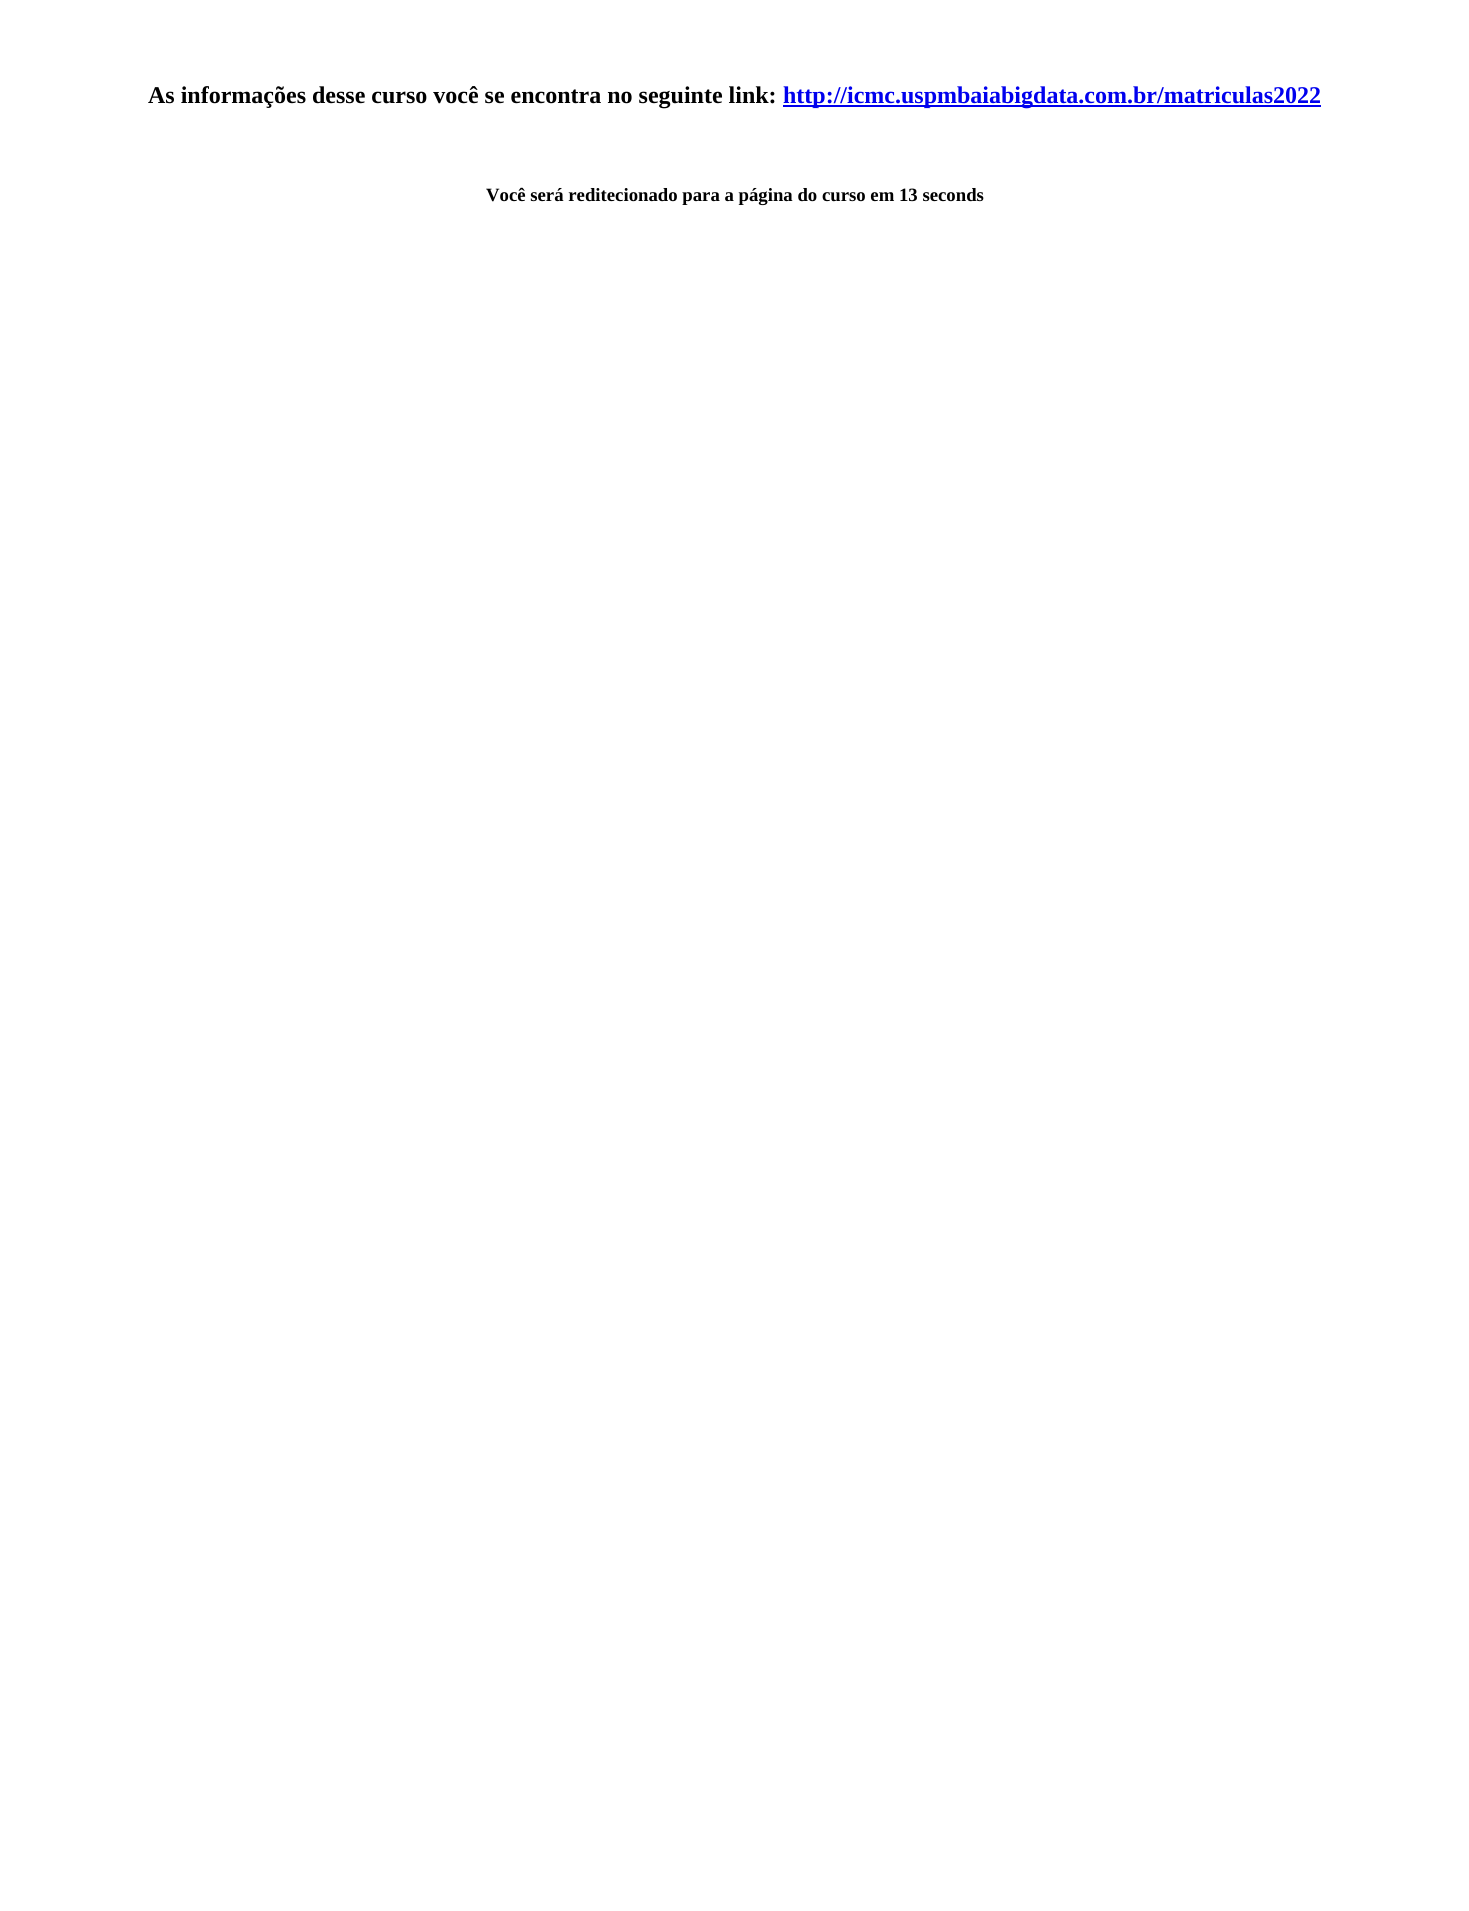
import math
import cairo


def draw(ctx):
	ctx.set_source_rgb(1, 1, 1)
	ctx.paint()
	ctx.select_font_face('Liberation Serif', cairo.FONT_SLANT_NORMAL, cairo.FONT_WEIGHT_BOLD)
	ctx.set_font_size(24)
	ctx.set_source_rgb(0, 0, 0)
	ctx.move_to(148, 103)
	ctx.show_text('As informações desse curso você se encontra no seguinte link:')
	ctx.set_source_rgb(0, 0, 0.933)
	ctx.rectangle(783, 105, 538, 2)
	ctx.fill()
	ctx.move_to(783, 103)
	ctx.show_text('http://icmc.uspmbaiabigdata.com.br/matriculas2022')
	ctx.set_font_size(18.75)
	ctx.set_source_rgb(0, 0, 0)
	ctx.move_to(486, 201)
	ctx.show_text('Você será reditecionado para a página do curso em 13 seconds')


surface = cairo.ImageSurface(cairo.FORMAT_RGB24, 1469, 1911)
ctx = cairo.Context(surface)
options = cairo.FontOptions()
options.set_hint_metrics(cairo.HINT_METRICS_OFF)
options.set_hint_style(cairo.HINT_STYLE_NONE)
ctx.set_font_options(options)
ctx.set_miter_limit(4)
draw(ctx)
surface.write_to_png('image.png')
